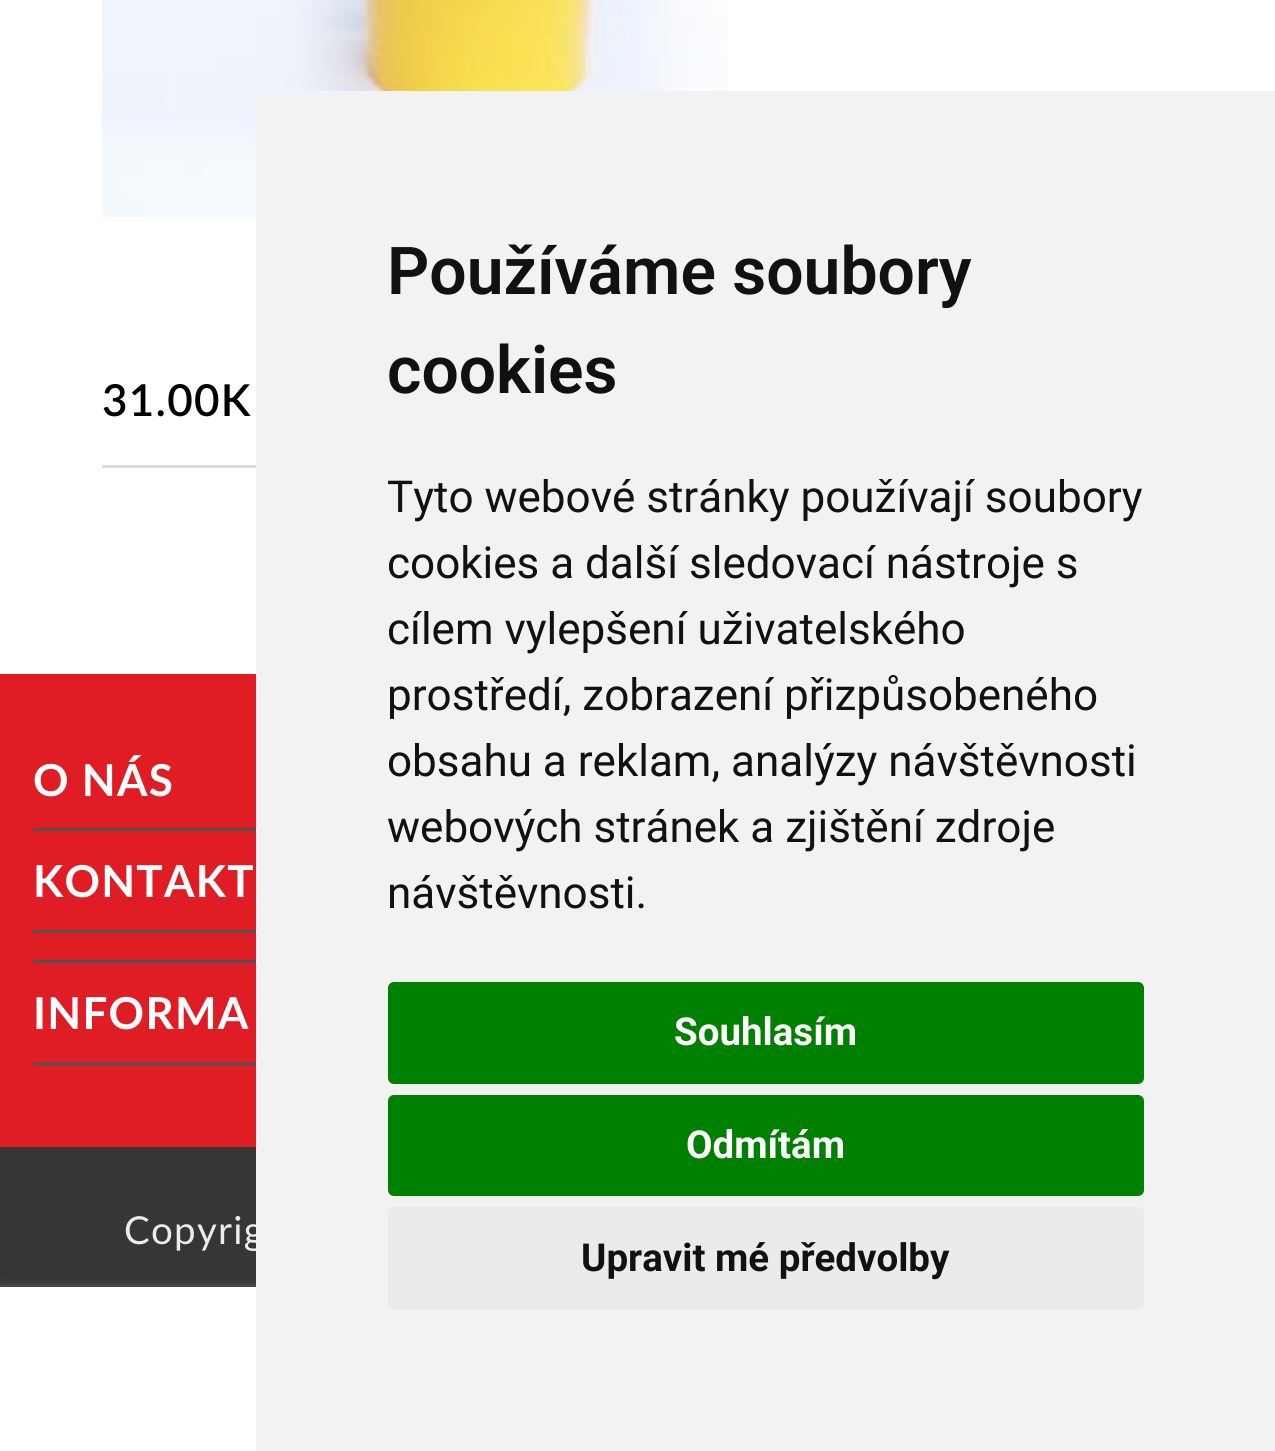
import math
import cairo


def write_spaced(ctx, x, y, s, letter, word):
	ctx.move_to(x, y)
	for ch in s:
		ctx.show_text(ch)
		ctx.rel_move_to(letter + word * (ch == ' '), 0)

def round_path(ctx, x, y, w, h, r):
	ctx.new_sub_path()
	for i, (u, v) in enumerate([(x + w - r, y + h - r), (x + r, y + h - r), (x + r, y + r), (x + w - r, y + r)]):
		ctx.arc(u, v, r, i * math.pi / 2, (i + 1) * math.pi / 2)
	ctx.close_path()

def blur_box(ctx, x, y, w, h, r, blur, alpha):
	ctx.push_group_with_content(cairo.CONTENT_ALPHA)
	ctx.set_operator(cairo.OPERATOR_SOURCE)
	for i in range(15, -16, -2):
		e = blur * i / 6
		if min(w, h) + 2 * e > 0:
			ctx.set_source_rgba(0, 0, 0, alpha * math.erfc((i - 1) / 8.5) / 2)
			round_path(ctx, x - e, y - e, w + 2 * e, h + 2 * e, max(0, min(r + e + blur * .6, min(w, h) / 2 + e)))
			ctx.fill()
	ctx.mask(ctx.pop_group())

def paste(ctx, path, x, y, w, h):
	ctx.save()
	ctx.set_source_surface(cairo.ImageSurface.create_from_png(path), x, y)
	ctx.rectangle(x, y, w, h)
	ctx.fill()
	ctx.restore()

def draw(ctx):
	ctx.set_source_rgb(1, 1, 1)
	ctx.paint()
	paste(ctx, 'media/1.png', 102, 0, 626, 217)
	ctx.select_font_face('Lato SemiBold')
	ctx.set_font_size(44)
	ctx.set_source_rgb(0, 0, 0)
	write_spaced(ctx, 102, 416, '31.00K', 1.25, 0)
	ctx.set_source_rgb(0.867, 0.867, 0.867)
	ctx.rectangle(102, 465, 154, 3)
	ctx.fill()
	ctx.set_source_rgb(0.212, 0.212, 0.208)
	ctx.rectangle(0, 1147, 256, 140)
	ctx.fill()
	ctx.select_font_face('Lato')
	ctx.set_font_size(38.5)
	ctx.set_source_rgb(0.922, 0.922, 0.922)
	write_spaced(ctx, 124, 1244, 'Copyrig', 1.25, 0)
	ctx.set_source_rgb(0.659, 0.659, 0.659)
	blur_box(ctx, 0, 1293, 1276, 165, 0, 7, 1)
	ctx.set_source_rgb(0.949, 0.949, 0.949)
	ctx.rectangle(256, 91, 1019, 1360)
	ctx.fill()
	ctx.select_font_face('Roboto SemiBold')
	ctx.set_font_size(66)
	ctx.set_source_rgb(0.067, 0.067, 0.067)
	ctx.move_to(387, 294)
	ctx.show_text('Používáme soubory')
	ctx.move_to(387, 393)
	ctx.show_text('cookies')
	ctx.select_font_face('Roboto')
	ctx.set_font_size(44)
	for x, y, s in [
		(387, 512, 'Tyto webové stránky používají soubory'),
		(387, 578, 'cookies a další sledovací nástroje s'),
		(387, 644, 'cílem vylepšení uživatelského'),
		(387, 710, 'prostředí, zobrazení přizpůsobeného'),
		(387, 776, 'obsahu a reklam, analýzy návštěvnosti'),
		(387, 842, 'webových stránek a zjištění zdroje'),
		(387, 908, 'návštěvnosti.'),
	]:
		ctx.move_to(x, y)
		ctx.show_text(s)
	ctx.set_source_rgb(0, 0.502, 0)
	round_path(ctx, 388, 982, 756, 102, 6)
	ctx.fill()
	ctx.select_font_face('Roboto', cairo.FONT_SLANT_NORMAL, cairo.FONT_WEIGHT_BOLD)
	ctx.set_font_size(38.5)
	ctx.set_source_rgb(1, 1, 1)
	ctx.move_to(674, 1045)
	ctx.show_text('Souhlasím')
	ctx.set_source_rgb(0, 0.502, 0)
	round_path(ctx, 388, 1095, 756, 101, 6)
	ctx.fill()
	ctx.set_source_rgb(1, 1, 1)
	ctx.move_to(686, 1158)
	ctx.show_text('Odmítám')
	ctx.set_source_rgb(0.918, 0.918, 0.918)
	round_path(ctx, 388, 1207, 756, 102, 6)
	ctx.fill()
	ctx.set_source_rgb(0.067, 0.067, 0.067)
	ctx.move_to(581, 1271)
	ctx.show_text('Upravit mé předvolby')
	ctx.set_source_rgb(0.878, 0.11, 0.141)
	ctx.rectangle(0, 674, 256, 473)
	ctx.fill()
	ctx.set_source_rgb(0.322, 0.322, 0.322)
	ctx.rectangle(33, 828, 223, 3)
	ctx.fill()
	ctx.select_font_face('Lato', cairo.FONT_SLANT_NORMAL, cairo.FONT_WEIGHT_BOLD)
	ctx.set_font_size(44)
	ctx.set_source_rgb(1, 1, 1)
	write_spaced(ctx, 33, 796, 'O NÁS', 1.25, 0)
	ctx.set_source_rgb(0.322, 0.322, 0.322)
	ctx.rectangle(33, 930, 223, 3)
	ctx.fill()
	ctx.set_source_rgb(1, 1, 1)
	write_spaced(ctx, 33, 897, 'KONTAKT', 1.25, 0)
	ctx.set_source_rgb(0.322, 0.322, 0.322)
	ctx.rectangle(33, 960, 223, 3)
	ctx.fill()
	ctx.rectangle(33, 1062, 223, 3)
	ctx.fill()
	ctx.set_source_rgb(1, 1, 1)
	write_spaced(ctx, 33, 1029, 'INFORMA', 1.25, 0)
	ctx.rectangle(0, 1287, 256, 164)
	ctx.fill()


surface = cairo.ImageSurface(cairo.FORMAT_RGB24, 1275, 1451)
ctx = cairo.Context(surface)
options = cairo.FontOptions()
options.set_hint_metrics(cairo.HINT_METRICS_OFF)
options.set_hint_style(cairo.HINT_STYLE_NONE)
ctx.set_font_options(options)
ctx.set_miter_limit(4)
draw(ctx)
surface.write_to_png('image.png')
